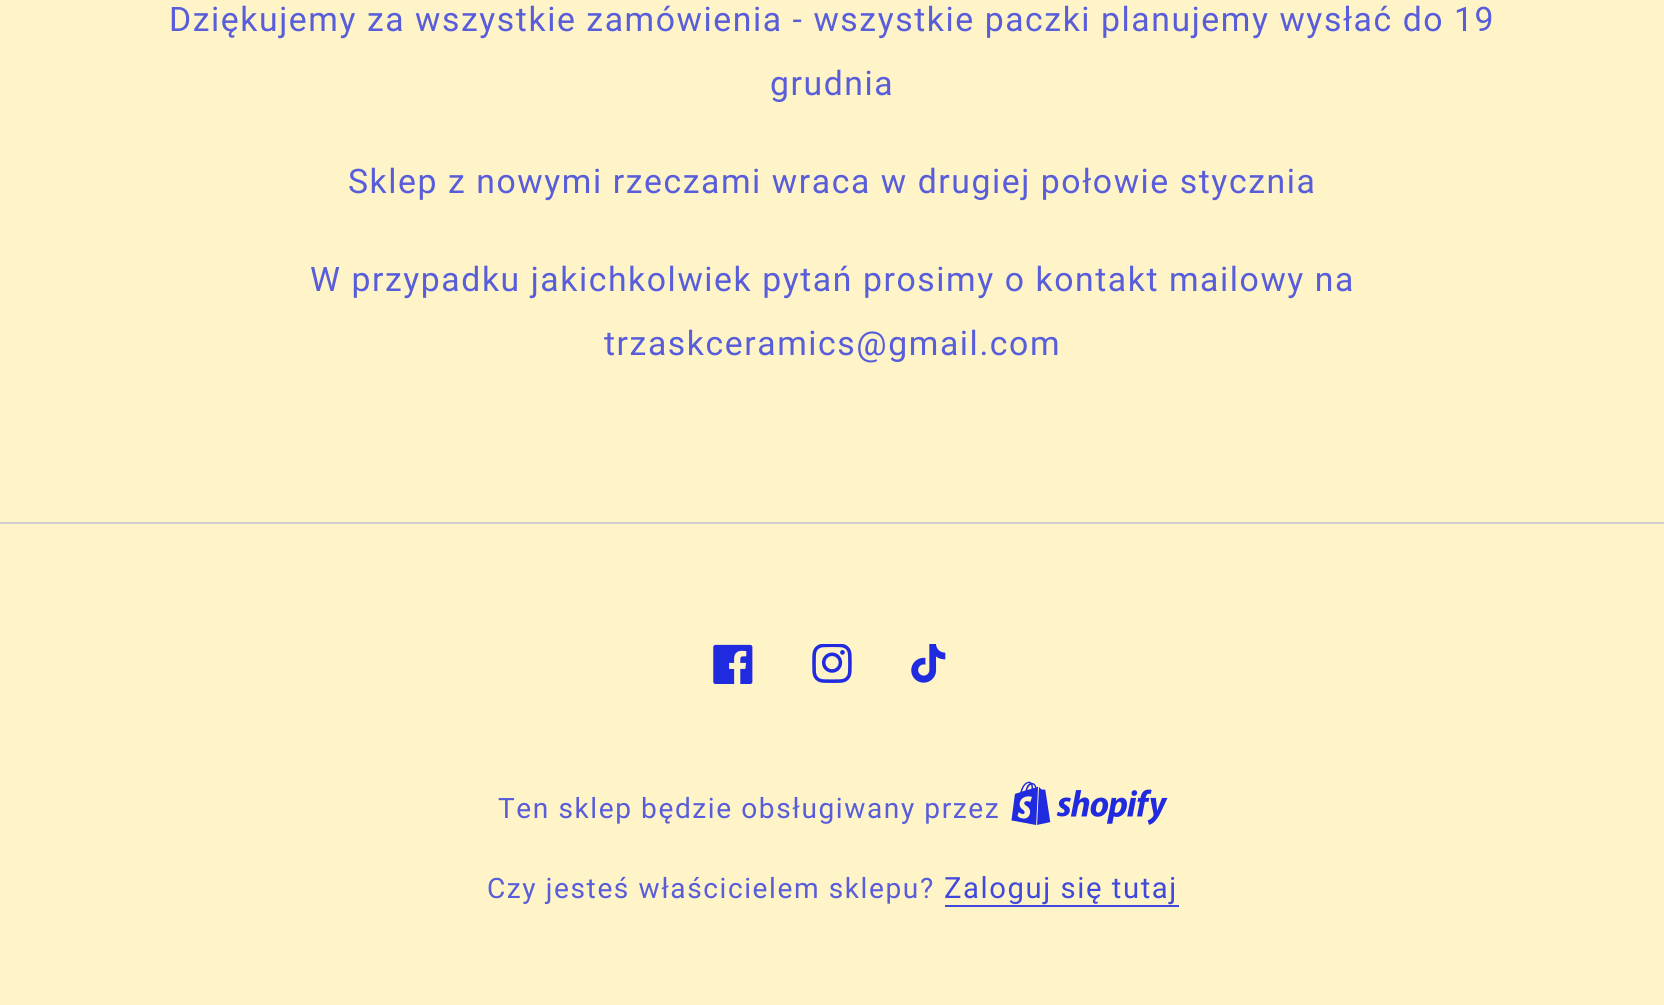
import math
import cairo


def write_spaced(ctx, x, y, s, letter, word):
	ctx.move_to(x, y)
	for ch in s:
		ctx.show_text(ch)
		ctx.rel_move_to(letter + word * (ch == ' '), 0)

def paste(ctx, path, x, y, w, h):
	ctx.save()
	ctx.set_source_surface(cairo.ImageSurface.create_from_png(path), x, y)
	ctx.rectangle(x, y, w, h)
	ctx.fill()
	ctx.restore()

def draw(ctx):
	ctx.set_source_rgb(1, 0.957, 0.78)
	ctx.paint()
	ctx.select_font_face('Roboto')
	ctx.set_font_size(33.75)
	ctx.set_source_rgb(0.345, 0.365, 0.855)
	for x, y, s in [
		(169, 31, 'Dziękujemy za wszystkie zamówienia - wszystkie paczki planujemy wysłać do 19'),
		(770, 95, 'grudnia'),
		(348, 193, 'Sklep z nowymi rzeczami wraca w drugiej połowie stycznia'),
		(310, 291, 'W przypadku jakichkolwiek pytań prosimy o kontakt mailowy na'),
		(604, 355, 'trzaskceramics@gmail.com'),
	]:
		write_spaced(ctx, x, y, s, 1.57, 0)
	ctx.set_source_rgb(0.824, 0.8, 0.8)
	ctx.rectangle(0, 522, 1664, 2)
	ctx.fill()
	paste(ctx, 'media/1.png', 713, 644, 40, 40)
	paste(ctx, 'media/2.png', 812, 644, 40, 39)
	paste(ctx, 'media/3.png', 911, 644, 35, 39)
	ctx.set_font_size(28.1)
	ctx.set_source_rgb(0.345, 0.365, 0.855)
	write_spaced(ctx, 498, 818, 'Ten sklep będzie obsługiwany przez', 1.57, 0)
	paste(ctx, 'media/4.png', 1011, 781, 157, 44)
	write_spaced(ctx, 487, 898, 'Czy jesteś właścicielem sklepu?', 1.57, 0)
	ctx.set_font_size(29.25)
	ctx.set_source_rgb(0.255, 0.286, 0.863)
	write_spaced(ctx, 944, 898, 'Zaloguj się tutaj', 1.57, 0)
	ctx.rectangle(945, 905, 234, 2)
	ctx.fill()


surface = cairo.ImageSurface(cairo.FORMAT_RGB24, 1664, 1005)
ctx = cairo.Context(surface)
options = cairo.FontOptions()
options.set_hint_metrics(cairo.HINT_METRICS_OFF)
options.set_hint_style(cairo.HINT_STYLE_NONE)
ctx.set_font_options(options)
ctx.set_miter_limit(4)
draw(ctx)
surface.write_to_png('image.png')
